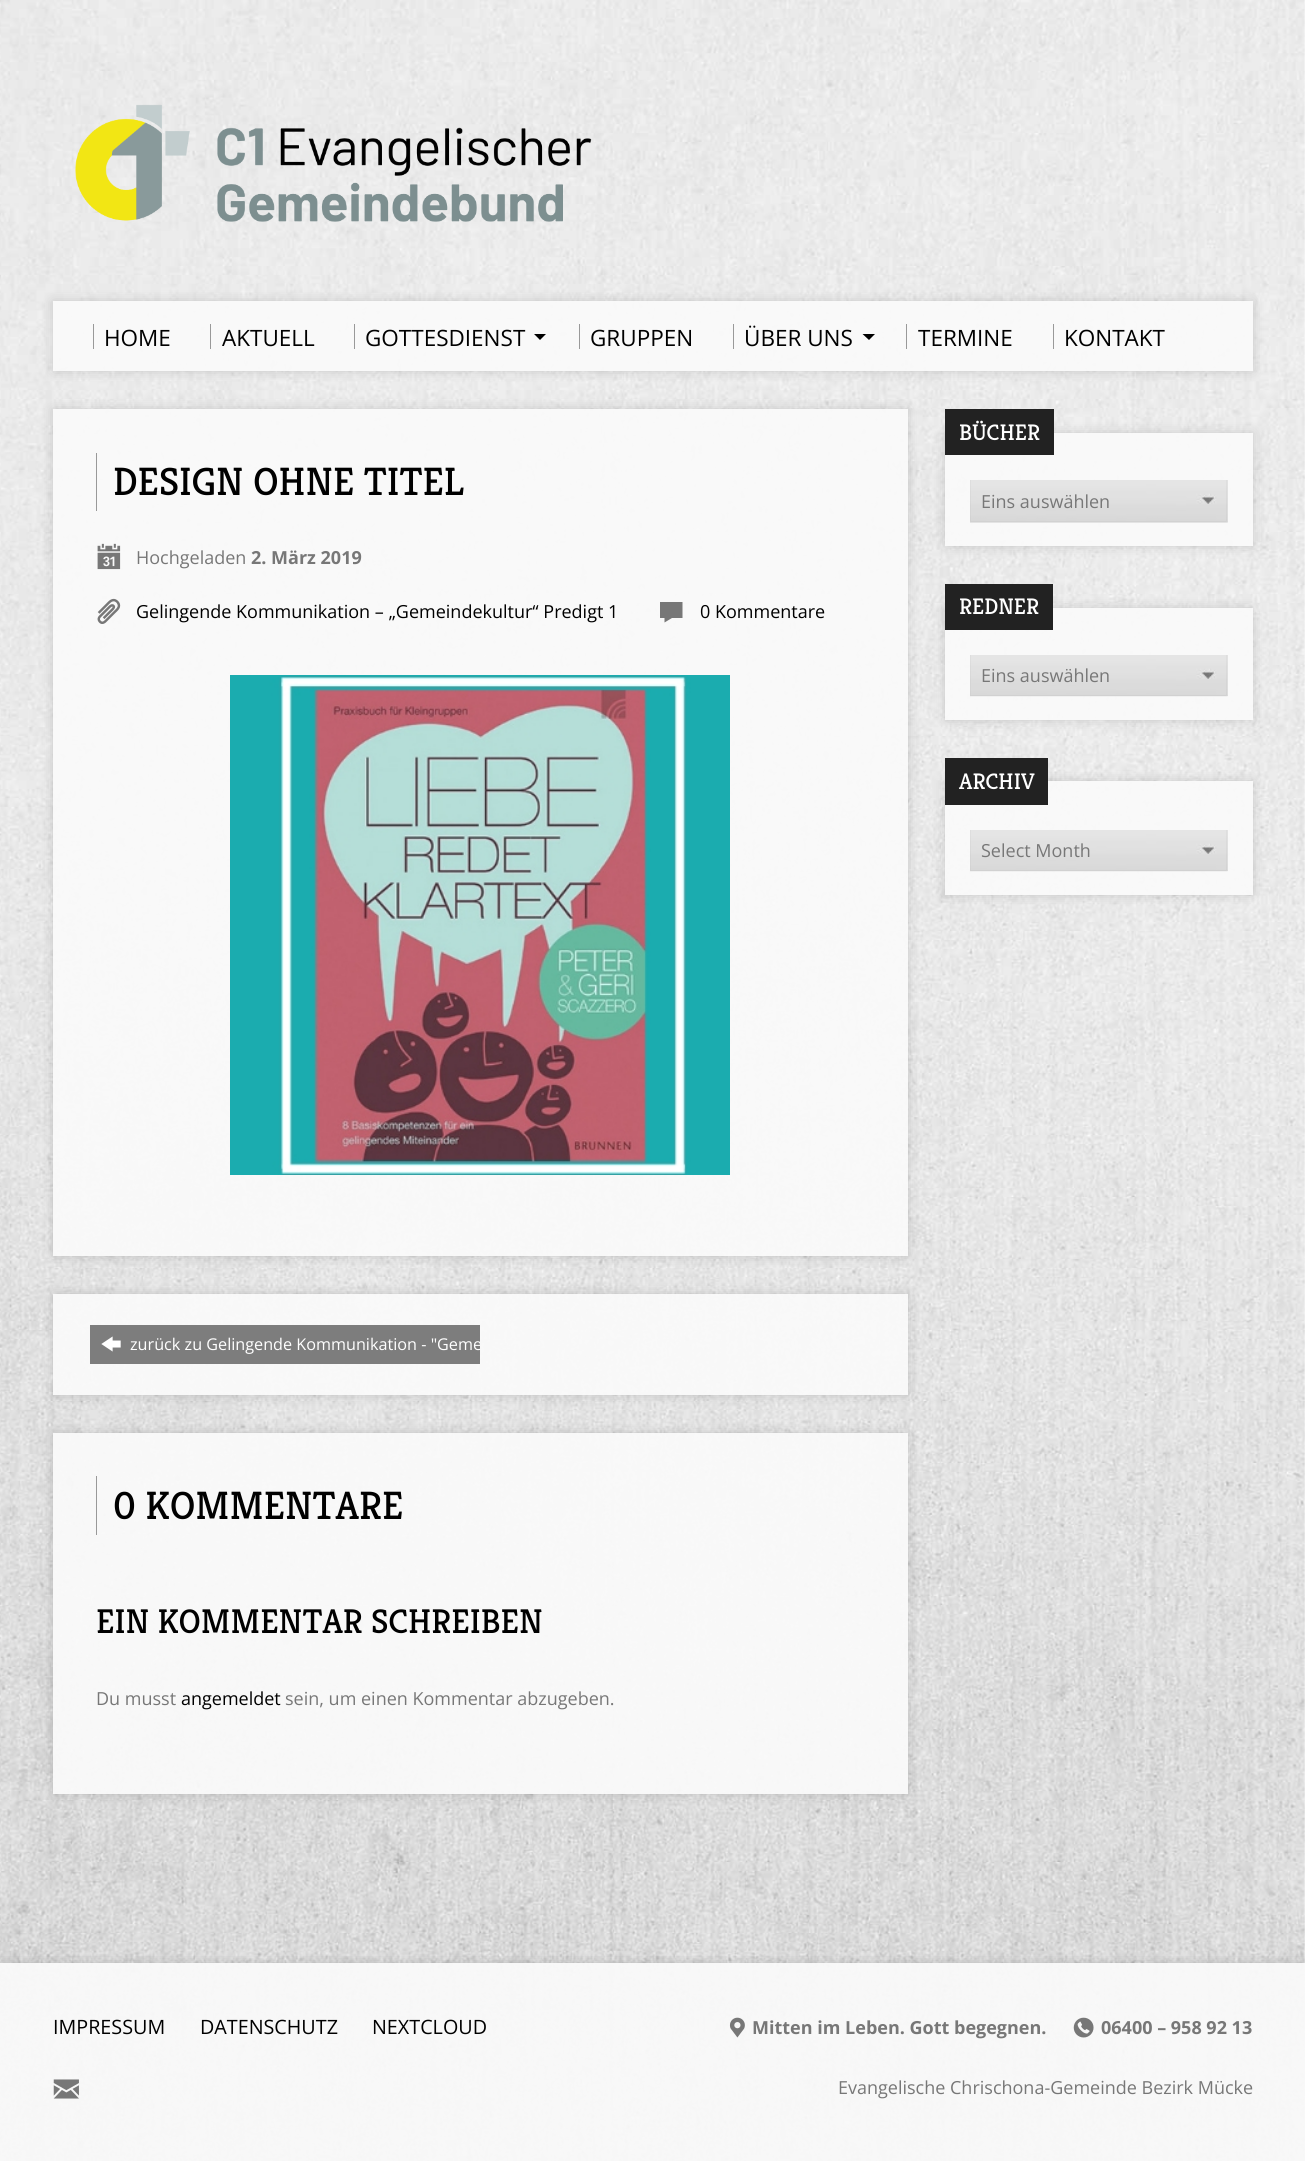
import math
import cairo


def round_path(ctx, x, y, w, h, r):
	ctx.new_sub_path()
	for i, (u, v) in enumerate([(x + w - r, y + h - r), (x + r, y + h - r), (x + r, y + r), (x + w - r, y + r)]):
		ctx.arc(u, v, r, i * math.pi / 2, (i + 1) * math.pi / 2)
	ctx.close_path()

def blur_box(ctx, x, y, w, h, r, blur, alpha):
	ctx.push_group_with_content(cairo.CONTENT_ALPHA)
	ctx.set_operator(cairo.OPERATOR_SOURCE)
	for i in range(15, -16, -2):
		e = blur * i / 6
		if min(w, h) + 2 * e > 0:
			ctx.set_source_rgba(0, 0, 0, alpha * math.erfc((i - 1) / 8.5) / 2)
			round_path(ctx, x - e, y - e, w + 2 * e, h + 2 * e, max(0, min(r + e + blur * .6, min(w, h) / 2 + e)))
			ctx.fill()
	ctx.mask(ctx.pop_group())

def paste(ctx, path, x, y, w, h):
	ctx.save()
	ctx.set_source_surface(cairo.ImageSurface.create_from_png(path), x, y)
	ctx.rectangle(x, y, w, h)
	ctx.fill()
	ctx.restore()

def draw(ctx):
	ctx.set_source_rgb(1, 1, 1)
	ctx.paint()
	paste(ctx, 'media/1.png', 0, 0, 1305, 2161)
	paste(ctx, 'media/2.png', 75, 104, 517, 118)
	ctx.save()
	ctx.set_fill_rule(cairo.FILL_RULE_EVEN_ODD)
	ctx.new_path()
	ctx.move_to(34, 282)
	ctx.line_to(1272, 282)
	ctx.line_to(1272, 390)
	ctx.line_to(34, 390)
	ctx.close_path()
	ctx.move_to(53, 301)
	ctx.line_to(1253, 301)
	ctx.line_to(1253, 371)
	ctx.line_to(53, 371)
	ctx.close_path()
	ctx.clip()
	ctx.set_source_rgb(0, 0, 0)
	blur_box(ctx, 53, 301, 1200, 70, 0, 6, 0.15)
	ctx.restore()
	ctx.set_source_rgba(0.98, 0.98, 0.98, 0.94)
	ctx.rectangle(53, 301, 1200, 70)
	ctx.fill()
	ctx.set_source_rgb(0.6, 0.6, 0.6)
	ctx.rectangle(93, 324, 1, 25)
	ctx.fill()
	ctx.select_font_face('Open Sans')
	ctx.set_font_size(22.5)
	ctx.set_source_rgb(0, 0, 0)
	ctx.move_to(104, 346)
	ctx.show_text('HOME')
	ctx.set_source_rgb(0.6, 0.6, 0.6)
	ctx.rectangle(210, 324, 1, 25)
	ctx.fill()
	ctx.set_source_rgb(0, 0, 0)
	ctx.move_to(222, 346)
	ctx.show_text('AKTUELL')
	ctx.set_source_rgb(0.6, 0.6, 0.6)
	ctx.rectangle(354, 324, 1, 25)
	ctx.fill()
	ctx.set_source_rgb(0, 0, 0)
	ctx.move_to(365, 346)
	ctx.show_text('GOTTESDIENST')
	ctx.new_path()
	ctx.move_to(534, 334)
	ctx.line_to(546, 334)
	ctx.line_to(540, 340)
	ctx.close_path()
	ctx.fill()
	ctx.set_source_rgb(0.6, 0.6, 0.6)
	ctx.rectangle(579, 324, 1, 25)
	ctx.fill()
	ctx.set_source_rgb(0, 0, 0)
	ctx.move_to(590, 346)
	ctx.show_text('GRUPPEN')
	ctx.set_source_rgb(0.6, 0.6, 0.6)
	ctx.rectangle(733, 324, 1, 25)
	ctx.fill()
	ctx.set_source_rgb(0, 0, 0)
	ctx.move_to(744, 346)
	ctx.show_text('ÜBER UNS')
	ctx.new_path()
	ctx.move_to(862.5, 334)
	ctx.line_to(875, 334)
	ctx.line_to(869, 340)
	ctx.close_path()
	ctx.fill()
	ctx.set_source_rgb(0.6, 0.6, 0.6)
	ctx.rectangle(906, 324, 1, 25)
	ctx.fill()
	ctx.set_source_rgb(0, 0, 0)
	ctx.move_to(918, 346)
	ctx.show_text('TERMINE')
	ctx.set_source_rgb(0.6, 0.6, 0.6)
	ctx.rectangle(1053, 324, 1, 25)
	ctx.fill()
	ctx.set_source_rgb(0, 0, 0)
	ctx.move_to(1064, 346)
	ctx.show_text('KONTAKT')
	ctx.save()
	ctx.set_fill_rule(cairo.FILL_RULE_EVEN_ODD)
	ctx.new_path()
	ctx.move_to(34, 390)
	ctx.line_to(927, 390)
	ctx.line_to(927, 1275)
	ctx.line_to(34, 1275)
	ctx.close_path()
	ctx.move_to(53, 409)
	ctx.line_to(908, 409)
	ctx.line_to(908, 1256)
	ctx.line_to(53, 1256)
	ctx.close_path()
	ctx.clip()
	ctx.set_source_rgb(0, 0, 0)
	blur_box(ctx, 53, 409, 855, 847, 0, 6, 0.15)
	ctx.restore()
	ctx.set_source_rgba(0.98, 0.98, 0.98, 0.94)
	ctx.rectangle(53, 409, 855, 847)
	ctx.fill()
	ctx.set_source_rgb(0.6, 0.6, 0.6)
	ctx.rectangle(96, 453, 1, 58)
	ctx.fill()
	ctx.select_font_face('Kreon')
	ctx.set_font_size(39.5)
	ctx.set_source_rgb(0, 0, 0)
	ctx.move_to(113, 495)
	ctx.show_text('DESIGN OHNE TITEL')
	paste(ctx, 'media/3.png', 97, 543, 24, 27)
	ctx.select_font_face('Open Sans')
	ctx.set_font_size(18)
	ctx.set_source_rgb(0.467, 0.467, 0.467)
	ctx.move_to(136, 564)
	ctx.show_text('Hochgeladen')
	ctx.select_font_face('Open Sans', cairo.FONT_SLANT_NORMAL, cairo.FONT_WEIGHT_BOLD)
	ctx.move_to(251, 564)
	ctx.show_text('2. März 2019')
	paste(ctx, 'media/4.png', 97, 598, 24, 26)
	ctx.select_font_face('Open Sans')
	ctx.set_source_rgb(0, 0, 0)
	ctx.move_to(136, 618)
	ctx.show_text('Gelingende Kommunikation – „Gemeindekultur“ Predigt 1')
	ctx.set_source_rgb(0.467, 0.467, 0.467)
	ctx.new_path()
	ctx.move_to(660, 602)
	ctx.line_to(660, 618)
	ctx.line_to(664.5, 618)
	ctx.line_to(664.5, 622.5)
	ctx.line_to(672, 618)
	ctx.line_to(682.5, 618)
	ctx.line_to(682.5, 602)
	ctx.close_path()
	ctx.fill()
	ctx.set_source_rgb(0, 0, 0)
	ctx.move_to(700, 618)
	ctx.show_text('0 Kommentare')
	paste(ctx, 'media/5.png', 230, 675, 500, 500)
	ctx.save()
	ctx.set_fill_rule(cairo.FILL_RULE_EVEN_ODD)
	ctx.new_path()
	ctx.move_to(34, 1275)
	ctx.line_to(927, 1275)
	ctx.line_to(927, 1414)
	ctx.line_to(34, 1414)
	ctx.close_path()
	ctx.move_to(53, 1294)
	ctx.line_to(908, 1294)
	ctx.line_to(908, 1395)
	ctx.line_to(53, 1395)
	ctx.close_path()
	ctx.clip()
	ctx.set_source_rgb(0, 0, 0)
	blur_box(ctx, 53, 1294, 855, 101, 0, 6, 0.15)
	ctx.restore()
	ctx.set_source_rgba(0.98, 0.98, 0.98, 0.94)
	ctx.rectangle(53, 1294, 855, 101)
	ctx.fill()
	ctx.set_source_rgb(0.49, 0.49, 0.49)
	ctx.rectangle(90, 1325, 390, 39)
	ctx.fill()
	paste(ctx, 'media/6.png', 101, 1336, 20, 16)
	ctx.save()
	ctx.rectangle(90, 1325, 390, 39)
	ctx.clip()
	ctx.set_font_size(16.2)
	ctx.set_source_rgb(1, 1, 1)
	ctx.move_to(130, 1350)
	ctx.show_text('zurück zu Gelingende Kommunikation - "Geme')
	ctx.restore()
	ctx.save()
	ctx.set_fill_rule(cairo.FILL_RULE_EVEN_ODD)
	ctx.new_path()
	ctx.move_to(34, 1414)
	ctx.line_to(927, 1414)
	ctx.line_to(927, 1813)
	ctx.line_to(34, 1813)
	ctx.close_path()
	ctx.move_to(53, 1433)
	ctx.line_to(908, 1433)
	ctx.line_to(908, 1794)
	ctx.line_to(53, 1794)
	ctx.close_path()
	ctx.clip()
	ctx.set_source_rgb(0, 0, 0)
	blur_box(ctx, 53, 1433, 855, 361, 0, 6, 0.15)
	ctx.restore()
	ctx.set_source_rgba(0.98, 0.98, 0.98, 0.94)
	ctx.rectangle(53, 1433, 855, 361)
	ctx.fill()
	ctx.set_source_rgb(0.6, 0.6, 0.6)
	ctx.rectangle(96, 1476, 1, 59)
	ctx.fill()
	ctx.select_font_face('Kreon')
	ctx.set_font_size(39.5)
	ctx.set_source_rgb(0, 0, 0)
	ctx.move_to(113, 1519)
	ctx.show_text('0 KOMMENTARE')
	ctx.set_font_size(34.25)
	ctx.move_to(96, 1633)
	ctx.show_text('EIN KOMMENTAR SCHREIBEN')
	ctx.select_font_face('Open Sans')
	ctx.set_font_size(18)
	ctx.set_source_rgb(0.467, 0.467, 0.467)
	ctx.move_to(96, 1705)
	ctx.show_text('Du musst')
	ctx.set_source_rgb(0, 0, 0)
	ctx.move_to(181, 1705)
	ctx.show_text('angemeldet')
	ctx.set_source_rgb(0.467, 0.467, 0.467)
	ctx.move_to(285, 1705)
	ctx.show_text('sein, um einen Kommentar abzugeben.')
	ctx.save()
	ctx.set_fill_rule(cairo.FILL_RULE_EVEN_ODD)
	ctx.new_path()
	ctx.move_to(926, 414)
	ctx.line_to(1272, 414)
	ctx.line_to(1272, 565)
	ctx.line_to(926, 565)
	ctx.close_path()
	ctx.move_to(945, 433)
	ctx.line_to(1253, 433)
	ctx.line_to(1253, 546)
	ctx.line_to(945, 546)
	ctx.close_path()
	ctx.clip()
	ctx.set_source_rgb(0, 0, 0)
	blur_box(ctx, 945, 433, 308, 113, 0, 6, 0.15)
	ctx.restore()
	ctx.set_source_rgba(0.98, 0.98, 0.98, 0.94)
	ctx.rectangle(945, 433, 308, 113)
	ctx.fill()
	ctx.set_source_rgb(0.133, 0.133, 0.133)
	ctx.rectangle(945, 409, 109, 46)
	ctx.fill()
	ctx.select_font_face('Kreon')
	ctx.set_font_size(22.5)
	ctx.set_source_rgb(1, 1, 1)
	ctx.move_to(959, 440)
	ctx.show_text('BÜCHER')
	ctx.set_source_rgb(0.937, 0.937, 0.937)
	ctx.rectangle(970, 480, 258, 43)
	ctx.fill()
	paste(ctx, 'media/7.png', 970, 480, 258, 43)
	ctx.set_source_rgba(0.588, 0.588, 0.588, 0.1)
	ctx.new_path()
	ctx.move_to(1228, 480)
	ctx.line_to(1228, 522)
	ctx.line_to(1226, 521)
	ctx.line_to(1226, 480)
	ctx.close_path()
	ctx.fill()
	ctx.set_source_rgb(0.82, 0.82, 0.82)
	ctx.new_path()
	ctx.move_to(1228, 522)
	ctx.line_to(970, 522)
	ctx.line_to(971, 521)
	ctx.line_to(1226, 521)
	ctx.close_path()
	ctx.fill()
	ctx.set_source_rgba(0.588, 0.588, 0.588, 0.1)
	ctx.new_path()
	ctx.move_to(970, 522)
	ctx.line_to(970, 480)
	ctx.line_to(971, 480)
	ctx.line_to(971, 521)
	ctx.close_path()
	ctx.fill()
	ctx.select_font_face('Open Sans')
	ctx.set_font_size(18)
	ctx.set_source_rgb(0.467, 0.467, 0.467)
	ctx.move_to(981, 508)
	ctx.show_text('Eins auswählen')
	ctx.save()
	ctx.set_fill_rule(cairo.FILL_RULE_EVEN_ODD)
	ctx.new_path()
	ctx.move_to(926, 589)
	ctx.line_to(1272, 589)
	ctx.line_to(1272, 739)
	ctx.line_to(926, 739)
	ctx.close_path()
	ctx.move_to(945, 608)
	ctx.line_to(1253, 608)
	ctx.line_to(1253, 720)
	ctx.line_to(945, 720)
	ctx.close_path()
	ctx.clip()
	ctx.set_source_rgb(0, 0, 0)
	blur_box(ctx, 945, 608, 308, 112, 0, 6, 0.15)
	ctx.restore()
	ctx.set_source_rgba(0.98, 0.98, 0.98, 0.94)
	ctx.rectangle(945, 608, 308, 112)
	ctx.fill()
	ctx.set_source_rgb(0.133, 0.133, 0.133)
	ctx.rectangle(945, 584, 108, 46)
	ctx.fill()
	ctx.select_font_face('Kreon')
	ctx.set_font_size(22.5)
	ctx.set_source_rgb(1, 1, 1)
	ctx.move_to(959, 614)
	ctx.show_text('REDNER')
	ctx.set_source_rgb(0.937, 0.937, 0.937)
	ctx.rectangle(1227, 655, 1, 41)
	ctx.fill()
	paste(ctx, 'media/8.png', 970, 655, 258, 42)
	ctx.set_source_rgba(0.588, 0.588, 0.588, 0.1)
	ctx.new_path()
	ctx.move_to(1228, 655)
	ctx.line_to(1228, 696)
	ctx.line_to(1226, 695)
	ctx.line_to(1226, 655)
	ctx.close_path()
	ctx.fill()
	ctx.set_source_rgb(0.82, 0.82, 0.82)
	ctx.new_path()
	ctx.move_to(1228, 696)
	ctx.line_to(970, 696)
	ctx.line_to(971, 695)
	ctx.line_to(1226, 695)
	ctx.close_path()
	ctx.fill()
	ctx.set_source_rgba(0.588, 0.588, 0.588, 0.1)
	ctx.new_path()
	ctx.move_to(970, 696)
	ctx.line_to(970, 655)
	ctx.line_to(971, 655)
	ctx.line_to(971, 695)
	ctx.close_path()
	ctx.fill()
	ctx.select_font_face('Open Sans')
	ctx.set_font_size(18)
	ctx.set_source_rgb(0.467, 0.467, 0.467)
	ctx.move_to(981, 682)
	ctx.show_text('Eins auswählen')
	ctx.save()
	ctx.set_fill_rule(cairo.FILL_RULE_EVEN_ODD)
	ctx.new_path()
	ctx.move_to(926, 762)
	ctx.line_to(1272, 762)
	ctx.line_to(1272, 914)
	ctx.line_to(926, 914)
	ctx.close_path()
	ctx.move_to(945, 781)
	ctx.line_to(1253, 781)
	ctx.line_to(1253, 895)
	ctx.line_to(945, 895)
	ctx.close_path()
	ctx.clip()
	ctx.set_source_rgb(0, 0, 0)
	blur_box(ctx, 945, 781, 308, 114, 0, 6, 0.15)
	ctx.restore()
	ctx.set_source_rgba(0.98, 0.98, 0.98, 0.94)
	ctx.rectangle(945, 781, 308, 114)
	ctx.fill()
	ctx.set_source_rgb(0.133, 0.133, 0.133)
	ctx.rectangle(945, 758, 103, 47)
	ctx.fill()
	ctx.select_font_face('Kreon')
	ctx.set_font_size(22.5)
	ctx.set_source_rgb(1, 1, 1)
	ctx.move_to(959, 789)
	ctx.show_text('ARCHIV')
	ctx.set_source_rgb(0.937, 0.937, 0.937)
	ctx.rectangle(1227, 830, 1, 41)
	ctx.fill()
	paste(ctx, 'media/9.png', 970, 830, 258, 42)
	ctx.set_source_rgba(0.588, 0.588, 0.588, 0.1)
	ctx.new_path()
	ctx.move_to(1228, 830)
	ctx.line_to(1228, 871)
	ctx.line_to(1226, 870)
	ctx.line_to(1226, 830)
	ctx.close_path()
	ctx.fill()
	ctx.set_source_rgb(0.82, 0.82, 0.82)
	ctx.new_path()
	ctx.move_to(1228, 871)
	ctx.line_to(970, 871)
	ctx.line_to(971, 870)
	ctx.line_to(1226, 870)
	ctx.close_path()
	ctx.fill()
	ctx.set_source_rgba(0.588, 0.588, 0.588, 0.1)
	ctx.new_path()
	ctx.move_to(970, 871)
	ctx.line_to(970, 830)
	ctx.line_to(971, 830)
	ctx.line_to(971, 870)
	ctx.close_path()
	ctx.fill()
	ctx.select_font_face('Open Sans')
	ctx.set_font_size(18)
	ctx.set_source_rgb(0.467, 0.467, 0.467)
	ctx.move_to(981, 857)
	ctx.show_text('Select Month')
	ctx.save()
	ctx.rectangle(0, 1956, 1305, 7)
	ctx.clip()
	ctx.set_source_rgb(0, 0, 0)
	blur_box(ctx, 0, 1963, 1305, 198, 0, 6, 0.15)
	ctx.restore()
	ctx.set_source_rgba(0.98, 0.98, 0.98, 0.94)
	ctx.rectangle(0, 1963, 1305, 198)
	ctx.fill()
	ctx.set_font_size(19.75)
	ctx.set_source_rgb(0, 0, 0)
	for x, y, s in [
		(53, 2034, 'IMPRESSUM'),
		(200, 2034, 'DATENSCHUTZ'),
		(372, 2034, 'NEXTCLOUD'),
	]:
		ctx.move_to(x, y)
		ctx.show_text(s)
	paste(ctx, 'media/10.png', 53, 2079, 26, 20)
	paste(ctx, 'media/11.png', 729, 2017, 16, 21)
	ctx.select_font_face('Open Sans', cairo.FONT_SLANT_NORMAL, cairo.FONT_WEIGHT_BOLD)
	ctx.set_font_size(18)
	ctx.set_source_rgb(0.467, 0.467, 0.467)
	ctx.move_to(752, 2034)
	ctx.show_text('Mitten im Leben. Gott begegnen.')
	paste(ctx, 'media/12.png', 1073, 2017, 21, 21)
	ctx.move_to(1101, 2034)
	ctx.show_text('06400 – 958 92 13')
	ctx.select_font_face('Open Sans')
	ctx.move_to(838, 2094)
	ctx.show_text('Evangelische Chrischona-Gemeinde Bezirk Mücke')


surface = cairo.ImageSurface(cairo.FORMAT_RGB24, 1305, 2161)
ctx = cairo.Context(surface)
options = cairo.FontOptions()
options.set_hint_metrics(cairo.HINT_METRICS_OFF)
options.set_hint_style(cairo.HINT_STYLE_NONE)
ctx.set_font_options(options)
ctx.set_miter_limit(4)
draw(ctx)
surface.write_to_png('image.png')
